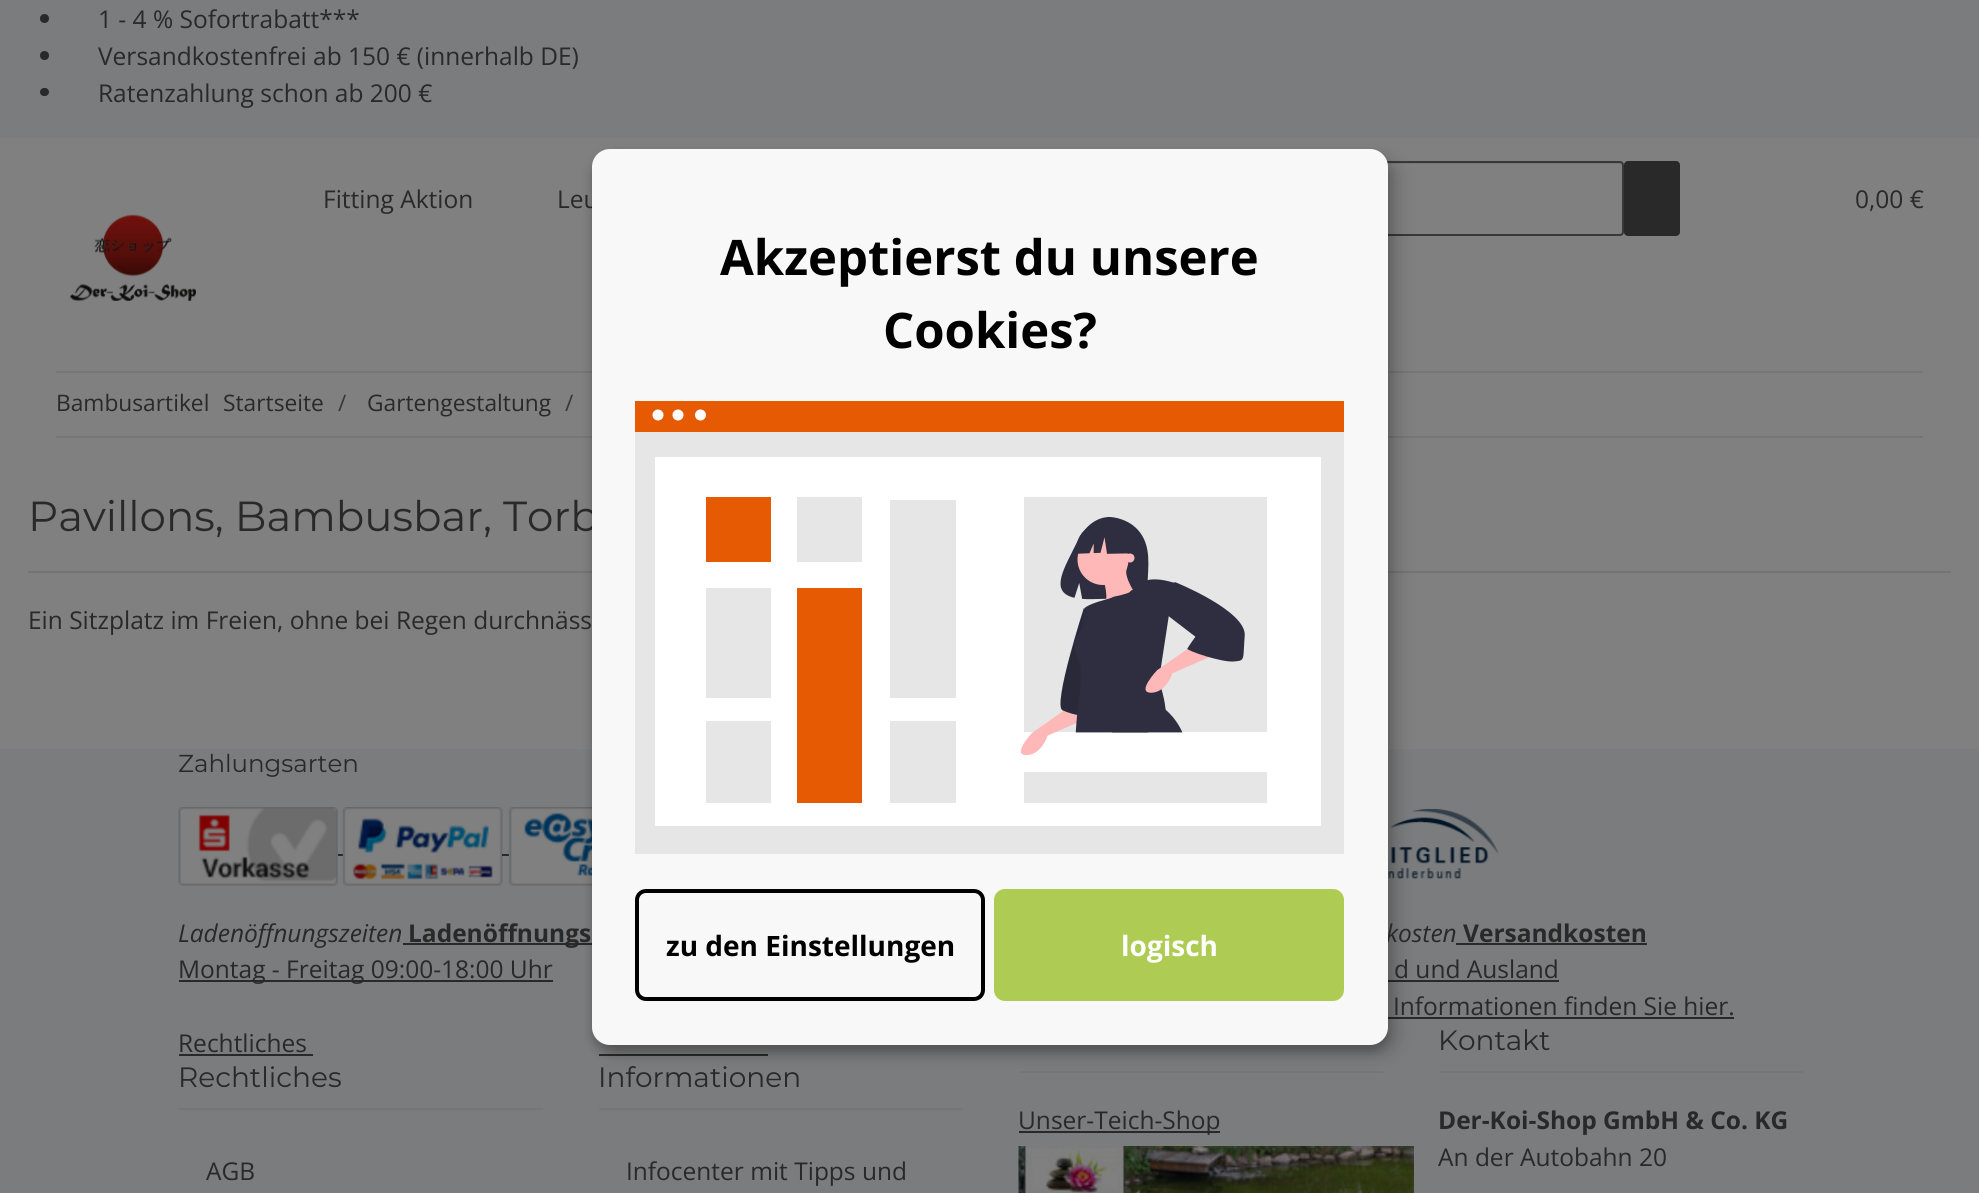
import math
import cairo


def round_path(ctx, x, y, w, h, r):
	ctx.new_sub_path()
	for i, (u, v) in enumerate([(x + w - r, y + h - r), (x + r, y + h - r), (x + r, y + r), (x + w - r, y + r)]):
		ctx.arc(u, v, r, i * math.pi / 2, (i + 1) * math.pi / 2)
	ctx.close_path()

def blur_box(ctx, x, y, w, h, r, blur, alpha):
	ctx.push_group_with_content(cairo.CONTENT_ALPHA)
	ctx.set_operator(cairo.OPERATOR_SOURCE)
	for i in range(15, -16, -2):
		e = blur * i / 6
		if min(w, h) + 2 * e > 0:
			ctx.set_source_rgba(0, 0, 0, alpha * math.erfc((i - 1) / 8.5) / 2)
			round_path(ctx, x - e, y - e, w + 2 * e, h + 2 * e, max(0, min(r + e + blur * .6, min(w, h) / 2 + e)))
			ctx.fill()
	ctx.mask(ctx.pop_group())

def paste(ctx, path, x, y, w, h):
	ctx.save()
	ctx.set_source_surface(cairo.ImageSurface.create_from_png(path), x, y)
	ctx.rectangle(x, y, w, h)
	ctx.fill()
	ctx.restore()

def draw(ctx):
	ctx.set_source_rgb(0.482, 0.486, 0.49)
	ctx.paint()
	ctx.set_source_rgb(0.161, 0.161, 0.161)
	ctx.arc(44.5, 18.5, 4.5, 0, 2 * math.pi)
	ctx.fill()
	ctx.select_font_face('Open Sans')
	ctx.set_font_size(24.5)
	ctx.move_to(98, 28)
	ctx.show_text('1 - 4 % Sofortrabatt***')
	ctx.new_path()
	ctx.arc(44.5, 55.5, 4.5, 0, 2 * math.pi)
	ctx.fill()
	ctx.move_to(98, 65)
	ctx.show_text('Versandkostenfrei ab 150 € (innerhalb DE)')
	round_path(ctx, 40, 88, 9, 8, 4)
	ctx.fill()
	ctx.move_to(98, 102)
	ctx.show_text('Ratenzahlung schon ab 200 €')
	ctx.set_source_rgb(0.502, 0.502, 0.502)
	ctx.rectangle(0, 138, 1979, 611)
	ctx.fill()
	ctx.set_source_rgb(0.161, 0.161, 0.161)
	ctx.move_to(323, 208)
	ctx.show_text('Fitting Aktion')
	ctx.move_to(557, 208)
	ctx.show_text('Leu')
	ctx.set_source_rgb(0.463, 0.463, 0.463)
	ctx.new_path()
	ctx.move_to(1262, 164)
	ctx.line_to(1620, 164)
	ctx.curve_to(1621, 164, 1622, 165, 1622, 166)
	ctx.curve_to(1622, 165, 1622, 163, 1620, 163)
	ctx.line_to(1262, 163)
	ctx.curve_to(1260, 163, 1260, 165, 1260, 166)
	ctx.curve_to(1260, 165, 1261, 164, 1262, 164)
	ctx.close_path()
	ctx.fill()
	round_path(ctx, 1259, 162, 364, 73, 3)
	ctx.set_source_rgb(0.22, 0.22, 0.22)
	ctx.stroke()
	ctx.set_source_rgb(0.161, 0.161, 0.161)
	round_path(ctx, 1624, 161, 56, 75, 4)
	ctx.fill()
	ctx.move_to(1855, 208)
	ctx.show_text('0,00 €')
	paste(ctx, 'media/1.png', 70, 214, 126, 87)
	ctx.set_source_rgb(0.463, 0.463, 0.463)
	ctx.rectangle(56, 371, 1867, 2)
	ctx.fill()
	ctx.rectangle(56, 436, 1867, 2)
	ctx.fill()
	ctx.set_font_size(22.75)
	ctx.set_source_rgb(0.161, 0.161, 0.161)
	ctx.move_to(56, 411)
	ctx.show_text('Bambusartikel')
	ctx.move_to(223, 411)
	ctx.show_text('Startseite')
	ctx.set_source_rgb(0.22, 0.22, 0.22)
	ctx.move_to(338, 411)
	ctx.show_text('/')
	ctx.set_source_rgb(0.161, 0.161, 0.161)
	ctx.move_to(367, 411)
	ctx.show_text('Gartengestaltung')
	ctx.set_source_rgb(0.22, 0.22, 0.22)
	ctx.move_to(565, 411)
	ctx.show_text('/')
	ctx.select_font_face('Montserrat')
	ctx.set_font_size(42)
	ctx.set_source_rgb(0.161, 0.161, 0.161)
	ctx.move_to(28, 531)
	ctx.show_text('Pavillons, Bambusbar, Torb')
	ctx.set_source_rgb(0.451, 0.451, 0.451)
	ctx.rectangle(28, 571, 1923, 2)
	ctx.fill()
	ctx.select_font_face('Open Sans')
	ctx.set_font_size(24.5)
	ctx.set_source_rgb(0.161, 0.161, 0.161)
	ctx.move_to(28, 629)
	ctx.show_text('Ein Sitzplatz im Freien, ohne bei Regen durchnäss')
	ctx.rectangle(338, 854, 5, 2)
	ctx.fill()
	paste(ctx, 'media/4.png', 342, 807, 161, 79)
	ctx.rectangle(502, 854, 7, 2)
	ctx.fill()
	paste(ctx, 'media/5.png', 508, 807, 84, 79)
	paste(ctx, 'media/6.png', 1388, 808, 111, 71)
	ctx.rectangle(403, 943, 189, 2)
	ctx.rectangle(1388, 980, 171, 2)
	ctx.rectangle(1388, 1017, 346, 2)
	ctx.rectangle(599, 1054, 169, 2)
	ctx.fill()
	ctx.set_source_rgb(0.463, 0.463, 0.463)
	ctx.rectangle(1019, 1071, 364, 2)
	ctx.fill()
	ctx.set_source_rgb(0, 0, 0)
	blur_box(ctx, 600, 158, 797, 896, 18, 9, 0.19)
	blur_box(ctx, 592, 156, 796, 896, 18, 5, 0.2)
	ctx.select_font_face('Open Sans', cairo.FONT_SLANT_ITALIC)
	ctx.set_source_rgb(0.161, 0.161, 0.161)
	ctx.move_to(1386, 942)
	ctx.show_text('kosten')
	ctx.set_source_rgb(0.973, 0.969, 0.969)
	round_path(ctx, 592, 149, 796, 896, 18)
	ctx.fill()
	ctx.select_font_face('Open Sans', cairo.FONT_SLANT_NORMAL, cairo.FONT_WEIGHT_BOLD)
	ctx.set_font_size(49)
	ctx.set_source_rgb(0, 0, 0)
	ctx.move_to(720, 275)
	ctx.show_text('Akzeptierst du unsere')
	ctx.move_to(883, 348)
	ctx.show_text('Cookies?')
	paste(ctx, 'media/2.png', 635, 401, 709, 453)
	round_path(ctx, 637, 891, 346, 108, 9)
	ctx.set_line_width(4)
	ctx.stroke()
	ctx.set_font_size(28)
	ctx.move_to(666, 956)
	ctx.show_text('zu den Einstellungen')
	ctx.set_source_rgb(0.682, 0.8, 0.325)
	round_path(ctx, 996, 891, 346, 108, 9)
	ctx.fill_preserve()
	ctx.stroke()
	ctx.set_source_rgb(1, 1, 1)
	ctx.move_to(1121, 956)
	ctx.show_text('logisch')
	ctx.select_font_face('Montserrat')
	ctx.set_font_size(24.5)
	ctx.set_source_rgb(0.161, 0.161, 0.161)
	ctx.move_to(178, 772)
	ctx.show_text('Zahlungsarten')
	paste(ctx, 'media/3.png', 178, 807, 160, 79)
	ctx.select_font_face('Open Sans', cairo.FONT_SLANT_ITALIC)
	ctx.move_to(178, 942)
	ctx.show_text('Ladenöffnungszeiten')
	ctx.select_font_face('Open Sans', cairo.FONT_SLANT_NORMAL, cairo.FONT_WEIGHT_BOLD)
	ctx.move_to(408, 942)
	ctx.show_text('Ladenöffnungs')
	ctx.rectangle(179, 980, 374, 2)
	ctx.fill()
	ctx.select_font_face('Open Sans')
	ctx.move_to(178, 978)
	ctx.show_text('Montag - Freitag 09:00-18:00 Uhr')
	ctx.select_font_face('Open Sans', cairo.FONT_SLANT_NORMAL, cairo.FONT_WEIGHT_BOLD)
	ctx.move_to(1463, 942)
	ctx.show_text('Versandkosten')
	ctx.rectangle(1456, 943, 191, 2)
	ctx.fill()
	ctx.select_font_face('Open Sans')
	for x, y, s in [
		(1394, 978, 'd und Ausland'),
		(1393, 1015, 'Informationen finden Sie hier.'),
		(178, 1052, 'Rechtliches'),
	]:
		ctx.move_to(x, y)
		ctx.show_text(s)
	ctx.rectangle(179, 1054, 134, 2)
	ctx.fill()
	ctx.set_source_rgb(0.463, 0.463, 0.463)
	ctx.rectangle(179, 1108, 364, 2)
	ctx.fill()
	ctx.select_font_face('Montserrat')
	ctx.set_font_size(28)
	ctx.set_source_rgb(0.161, 0.161, 0.161)
	ctx.move_to(178, 1087)
	ctx.show_text('Rechtliches')
	ctx.select_font_face('Open Sans')
	ctx.set_font_size(24.5)
	ctx.move_to(206, 1180)
	ctx.show_text('AGB')
	ctx.set_source_rgb(0.463, 0.463, 0.463)
	ctx.rectangle(599, 1108, 364, 2)
	ctx.fill()
	ctx.select_font_face('Montserrat')
	ctx.set_font_size(28)
	ctx.set_source_rgb(0.161, 0.161, 0.161)
	ctx.move_to(598, 1087)
	ctx.show_text('Informationen')
	ctx.select_font_face('Open Sans')
	ctx.set_font_size(24.5)
	ctx.move_to(626, 1180)
	ctx.show_text('Infocenter mit Tipps und')
	ctx.rectangle(1019, 1131, 201, 2)
	ctx.fill()
	ctx.move_to(1018, 1129)
	ctx.show_text('Unser-Teich-Shop')
	paste(ctx, 'media/7.png', 1018, 1146, 396, 47)
	ctx.set_source_rgb(0.463, 0.463, 0.463)
	ctx.rectangle(1439, 1071, 364, 2)
	ctx.fill()
	ctx.select_font_face('Montserrat')
	ctx.set_font_size(28)
	ctx.set_source_rgb(0.161, 0.161, 0.161)
	ctx.move_to(1438, 1050)
	ctx.show_text('Kontakt')
	ctx.select_font_face('Open Sans', cairo.FONT_SLANT_NORMAL, cairo.FONT_WEIGHT_BOLD)
	ctx.set_font_size(24.5)
	ctx.move_to(1438, 1129)
	ctx.show_text('Der-Koi-Shop GmbH & Co. KG')
	ctx.select_font_face('Open Sans')
	ctx.move_to(1438, 1166)
	ctx.show_text('An der Autobahn 20')


surface = cairo.ImageSurface(cairo.FORMAT_RGB24, 1979, 1193)
ctx = cairo.Context(surface)
options = cairo.FontOptions()
options.set_hint_metrics(cairo.HINT_METRICS_OFF)
options.set_hint_style(cairo.HINT_STYLE_NONE)
ctx.set_font_options(options)
ctx.set_miter_limit(4)
draw(ctx)
surface.write_to_png('image.png')
